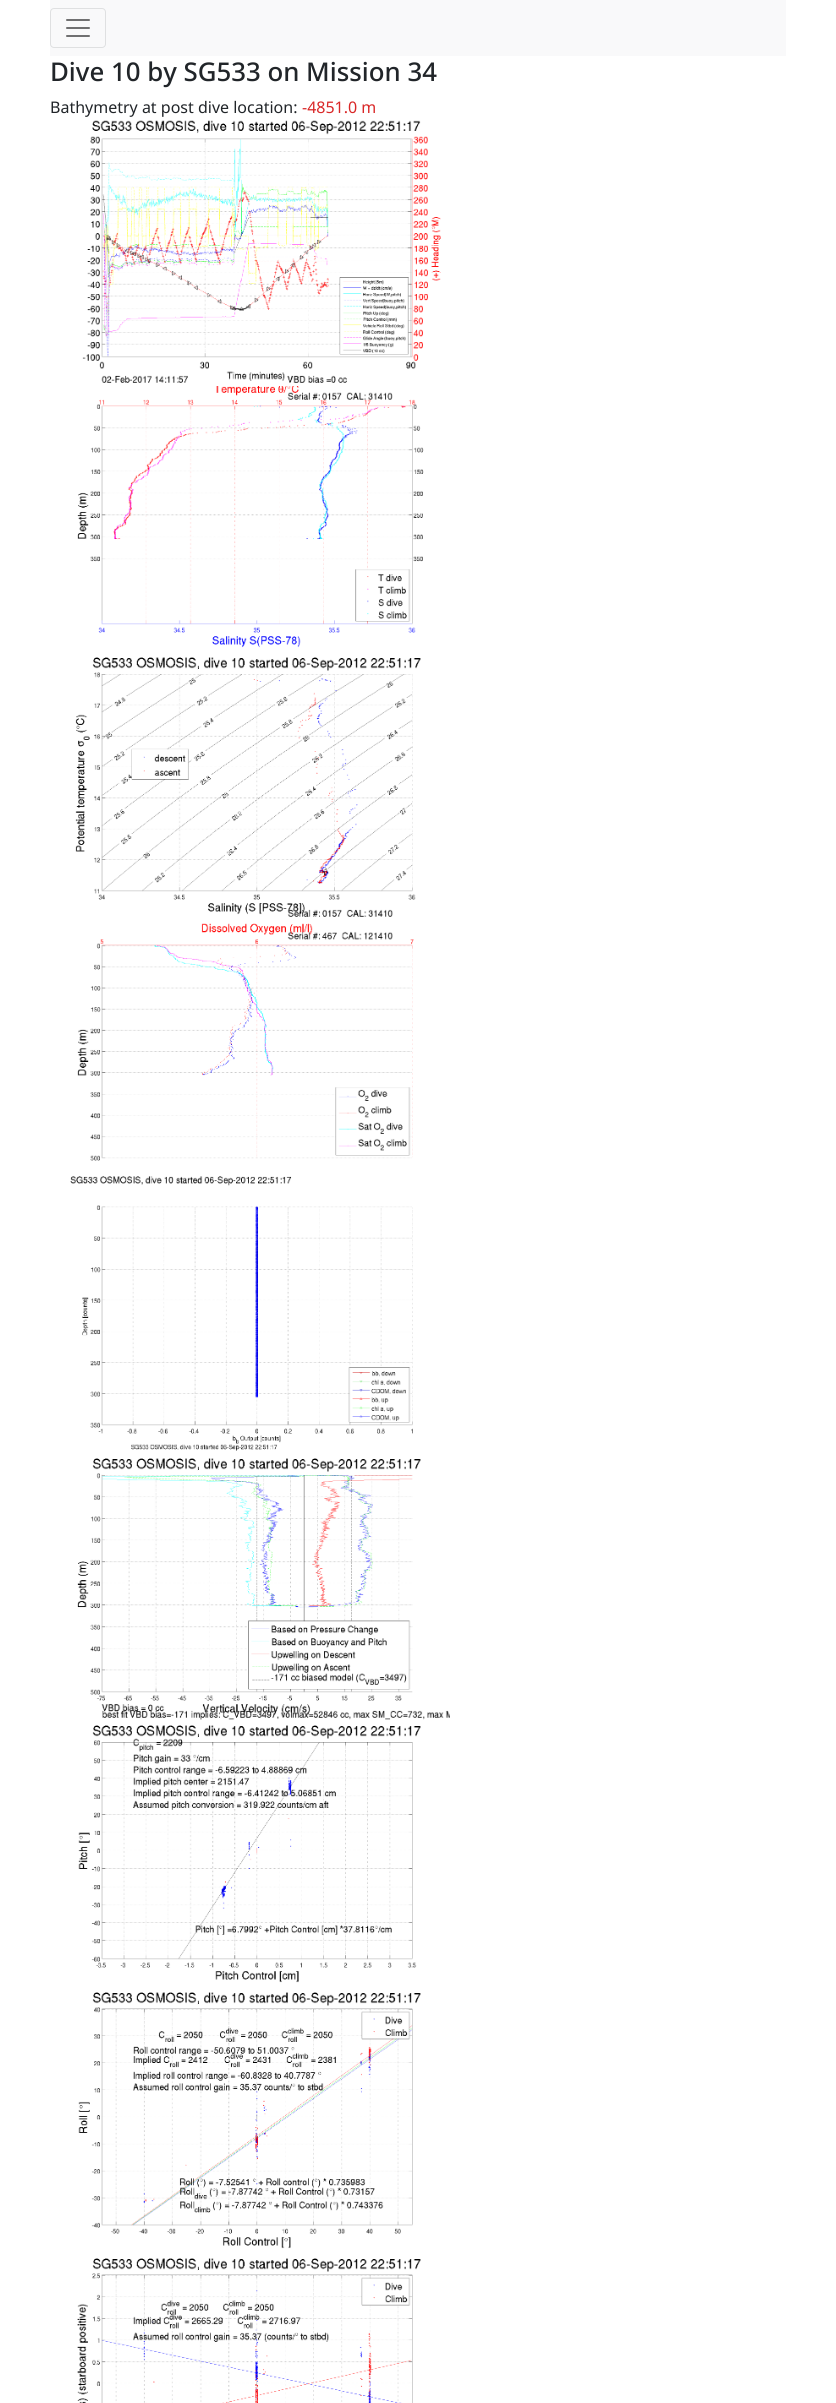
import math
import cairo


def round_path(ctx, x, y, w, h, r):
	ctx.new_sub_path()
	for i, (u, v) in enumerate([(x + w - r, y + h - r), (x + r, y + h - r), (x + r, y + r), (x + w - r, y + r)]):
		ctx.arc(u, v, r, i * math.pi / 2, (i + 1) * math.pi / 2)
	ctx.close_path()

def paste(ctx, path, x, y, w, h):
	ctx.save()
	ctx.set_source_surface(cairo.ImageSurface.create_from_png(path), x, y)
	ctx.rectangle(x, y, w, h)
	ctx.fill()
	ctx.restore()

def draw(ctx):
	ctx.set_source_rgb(1, 1, 1)
	ctx.paint()
	ctx.set_source_rgb(0.973, 0.976, 0.98)
	ctx.rectangle(50, 0, 736, 56)
	ctx.fill()
	round_path(ctx, 50.5, 8.5, 55, 39, 3.5)
	ctx.set_source_rgb(0.875, 0.878, 0.882)
	ctx.set_line_width(1)
	ctx.stroke()
	paste(ctx, 'media/1.png', 66, 19, 24, 18)
	ctx.select_font_face('Noto Sans Medium')
	ctx.set_font_size(25.8)
	ctx.set_source_rgb(0.129, 0.145, 0.161)
	ctx.move_to(50, 81)
	ctx.show_text('Dive 10 by SG533 on Mission 34')
	ctx.select_font_face('Noto Sans')
	ctx.set_font_size(16)
	ctx.move_to(50, 113)
	ctx.show_text('Bathymetry at post dive location:')
	ctx.set_source_rgb(0.851, 0.153, 0.153)
	ctx.move_to(302, 113)
	ctx.show_text('-4851.0 m')
	paste(ctx, 'media/2.png', 82, 120, 359, 263)
	paste(ctx, 'media/3.png', 77, 386, 347, 262)
	paste(ctx, 'media/4.png', 75, 657, 346, 260)
	paste(ctx, 'media/5.png', 70, 923, 344, 263)
	paste(ctx, 'media/6.png', 82, 1205, 331, 246)
	paste(ctx, 'media/7.png', 77, 1458, 373, 262)
	paste(ctx, 'media/8.png', 78, 1725, 343, 258)
	paste(ctx, 'media/9.png', 78, 1992, 343, 257)
	paste(ctx, 'media/10.png', 77, 2258, 344, 145)


surface = cairo.ImageSurface(cairo.FORMAT_RGB24, 836, 2403)
ctx = cairo.Context(surface)
options = cairo.FontOptions()
options.set_hint_metrics(cairo.HINT_METRICS_OFF)
options.set_hint_style(cairo.HINT_STYLE_NONE)
ctx.set_font_options(options)
ctx.set_miter_limit(4)
draw(ctx)
surface.write_to_png('image.png')
